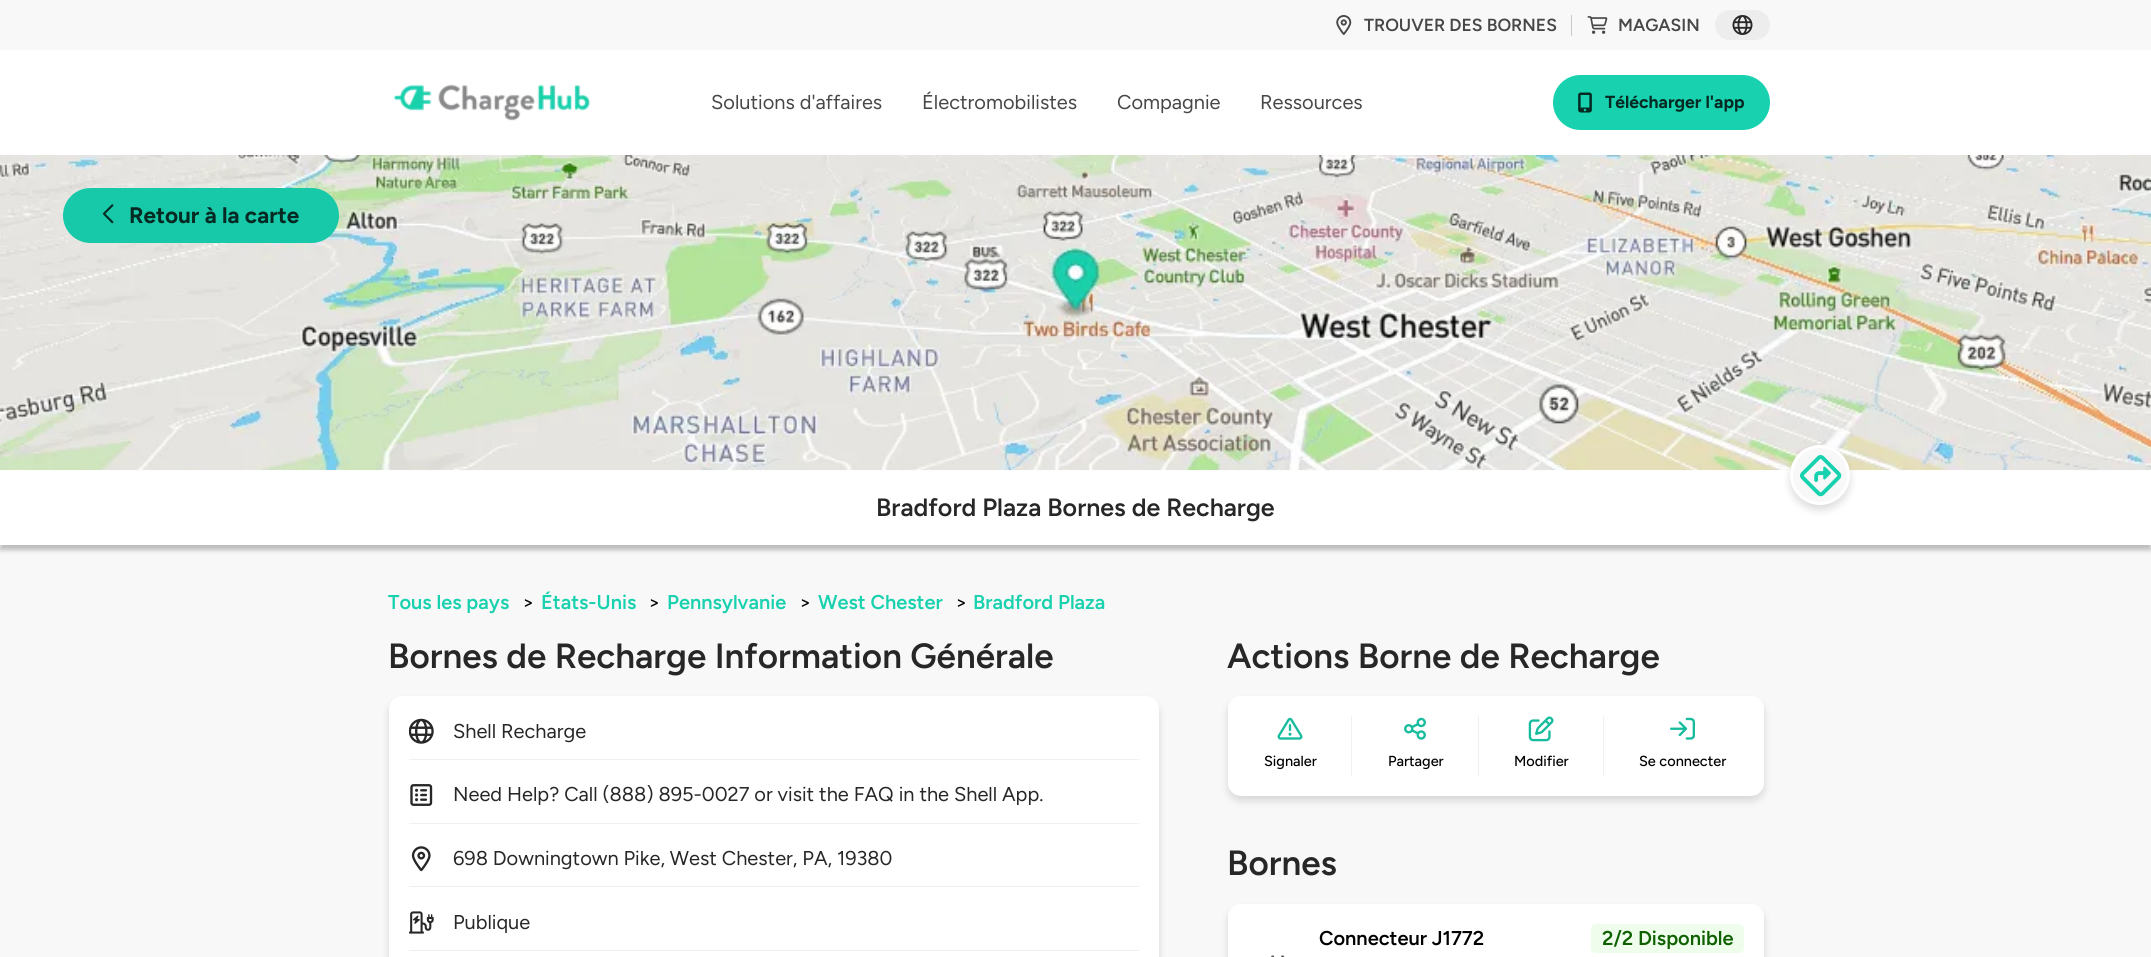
import math
import cairo


def round_path(ctx, x, y, w, h, r):
	ctx.new_sub_path()
	for i, (u, v) in enumerate([(x + w - r, y + h - r), (x + r, y + h - r), (x + r, y + r), (x + w - r, y + r)]):
		ctx.arc(u, v, r, i * math.pi / 2, (i + 1) * math.pi / 2)
	ctx.close_path()

def blur_box(ctx, x, y, w, h, r, blur, alpha):
	ctx.push_group_with_content(cairo.CONTENT_ALPHA)
	ctx.set_operator(cairo.OPERATOR_SOURCE)
	for i in range(15, -16, -2):
		e = blur * i / 6
		if min(w, h) + 2 * e > 0:
			ctx.set_source_rgba(0, 0, 0, alpha * math.erfc((i - 1) / 8.5) / 2)
			round_path(ctx, x - e, y - e, w + 2 * e, h + 2 * e, max(0, min(r + e + blur * .6, min(w, h) / 2 + e)))
			ctx.fill()
	ctx.mask(ctx.pop_group())

def paste(ctx, path, x, y, w, h):
	ctx.save()
	ctx.set_source_surface(cairo.ImageSurface.create_from_png(path), x, y)
	ctx.rectangle(x, y, w, h)
	ctx.fill()
	ctx.restore()

def draw(ctx):
	ctx.set_source_rgb(1, 1, 1)
	ctx.paint()
	ctx.set_source_rgb(0.969, 0.969, 0.969)
	ctx.rectangle(0, 0, 2151, 50)
	ctx.fill()
	ctx.set_source_rgb(0.788, 0.788, 0.788)
	ctx.rectangle(1571, 15, 1, 21)
	ctx.fill()
	paste(ctx, 'media/1.png', 1336, 15, 16, 20)
	ctx.select_font_face('Figtree SemiBold')
	ctx.set_font_size(17.5)
	ctx.set_source_rgb(0.278, 0.278, 0.278)
	ctx.move_to(1364, 31)
	ctx.show_text('TROUVER DES BORNES')
	paste(ctx, 'media/2.png', 1587, 16, 21, 18)
	ctx.move_to(1618, 31)
	ctx.show_text('MAGASIN')
	ctx.set_source_rgb(0.929, 0.929, 0.929)
	round_path(ctx, 1715, 10, 55, 30, 15)
	ctx.fill()
	paste(ctx, 'media/3.png', 1732, 15, 21, 20)
	paste(ctx, 'media/4.png', 393, 84, 198, 37)
	ctx.select_font_face('Figtree')
	ctx.set_font_size(20)
	ctx.set_source_rgb(0.278, 0.278, 0.278)
	for x, y, s in [
		(711, 109, 'Solutions d\'affaires'),
		(922, 109, 'Électromobilistes'),
		(1117, 109, 'Compagnie'),
		(1260, 109, 'Ressources'),
	]:
		ctx.move_to(x, y)
		ctx.show_text(s)
	ctx.set_source_rgb(0.094, 0.82, 0.682)
	round_path(ctx, 1553, 75, 217, 55, 27.5)
	ctx.fill()
	paste(ctx, 'media/5.png', 1578, 92, 14, 21)
	ctx.select_font_face('Figtree', cairo.FONT_SLANT_NORMAL, cairo.FONT_WEIGHT_BOLD)
	ctx.set_font_size(17.5)
	ctx.set_source_rgb(0.02, 0.165, 0.137)
	ctx.move_to(1605, 108)
	ctx.show_text('Télécharger l\'app')
	ctx.set_source_rgb(0.969, 0.969, 0.969)
	ctx.rectangle(0, 545, 2151, 412)
	ctx.fill()
	ctx.set_source_rgb(0, 0, 0)
	blur_box(ctx, 0, 475, 2151, 75, 0, 2.5, 0.25)
	paste(ctx, 'media/6.png', 0, 155, 2151, 315)
	ctx.set_source_rgb(0.09, 0.788, 0.659)
	round_path(ctx, 63, 188, 276, 55, 27.5)
	ctx.fill()
	paste(ctx, 'media/7.png', 102, 204, 12, 20)
	ctx.set_font_size(22.5)
	ctx.set_source_rgb(0.02, 0.165, 0.137)
	ctx.move_to(129, 223)
	ctx.show_text('Retour à la carte')
	ctx.set_source_rgb(1, 1, 1)
	ctx.rectangle(0, 471, 2151, 74)
	ctx.fill()
	ctx.select_font_face('Figtree SemiBold')
	ctx.set_font_size(25)
	ctx.set_source_rgb(0.153, 0.153, 0.153)
	ctx.move_to(876, 516)
	ctx.show_text('Bradford Plaza Bornes de Recharge')
	ctx.set_source_rgb(0.141, 0.141, 0.141)
	blur_box(ctx, 1790, 450, 60, 60, 30, 4, 0.16)
	ctx.set_source_rgb(0.969, 0.969, 0.969)
	ctx.arc(1820, 475, 28.5, 0, 2 * math.pi)
	ctx.fill_preserve()
	ctx.set_source_rgb(1, 1, 1)
	ctx.set_line_width(3)
	ctx.stroke()
	paste(ctx, 'media/8.png', 1800, 455, 42, 42)
	ctx.set_font_size(20)
	ctx.set_source_rgb(0.094, 0.82, 0.682)
	ctx.move_to(388, 609)
	ctx.show_text('Tous les pays')
	ctx.select_font_face('Figtree')
	ctx.set_source_rgb(0, 0, 0)
	ctx.move_to(522, 609)
	ctx.show_text('>')
	ctx.select_font_face('Figtree SemiBold')
	ctx.set_source_rgb(0.094, 0.82, 0.682)
	ctx.move_to(541, 609)
	ctx.show_text('États-Unis')
	ctx.select_font_face('Figtree')
	ctx.set_source_rgb(0, 0, 0)
	ctx.move_to(648, 609)
	ctx.show_text('>')
	ctx.select_font_face('Figtree SemiBold')
	ctx.set_source_rgb(0.094, 0.82, 0.682)
	ctx.move_to(667, 609)
	ctx.show_text('Pennsylvanie')
	ctx.select_font_face('Figtree')
	ctx.set_source_rgb(0, 0, 0)
	ctx.move_to(799, 609)
	ctx.show_text('>')
	ctx.select_font_face('Figtree SemiBold')
	ctx.set_source_rgb(0.094, 0.82, 0.682)
	ctx.move_to(818, 609)
	ctx.show_text('West Chester')
	ctx.select_font_face('Figtree')
	ctx.set_source_rgb(0, 0, 0)
	ctx.move_to(955, 609)
	ctx.show_text('>')
	ctx.select_font_face('Figtree SemiBold')
	ctx.set_source_rgb(0.094, 0.82, 0.682)
	ctx.move_to(973, 609)
	ctx.show_text('Bradford Plaza')
	ctx.set_font_size(35)
	ctx.set_source_rgb(0.153, 0.153, 0.153)
	ctx.move_to(388, 668)
	ctx.show_text('Bornes de Recharge Information Générale')
	ctx.set_source_rgb(0.141, 0.141, 0.141)
	blur_box(ctx, 389, 701, 770, 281, 13, 4, 0.16)
	ctx.set_source_rgb(1, 1, 1)
	round_path(ctx, 389, 696, 770, 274, 13)
	ctx.fill()
	ctx.set_source_rgb(0.941, 0.941, 0.941)
	ctx.rectangle(409, 759, 730, 1)
	ctx.fill()
	paste(ctx, 'media/9.png', 409, 718, 25, 26)
	ctx.select_font_face('Figtree')
	ctx.set_font_size(20)
	ctx.set_source_rgb(0.153, 0.153, 0.153)
	ctx.move_to(453, 738)
	ctx.show_text('Shell Recharge')
	ctx.set_source_rgb(0.941, 0.941, 0.941)
	ctx.rectangle(409, 823, 730, 1)
	ctx.fill()
	paste(ctx, 'media/10.png', 410, 784, 23, 22)
	ctx.set_source_rgb(0.153, 0.153, 0.153)
	ctx.move_to(453, 801)
	ctx.show_text('Need Help? Call (888) 895-0027 or visit the FAQ in the Shell App.')
	ctx.set_source_rgb(0.941, 0.941, 0.941)
	ctx.rectangle(409, 886, 730, 1)
	ctx.fill()
	paste(ctx, 'media/11.png', 411, 846, 20, 26)
	ctx.set_source_rgb(0.153, 0.153, 0.153)
	ctx.move_to(453, 865)
	ctx.show_text('698 Downingtown Pike, West Chester, PA, 19380')
	ctx.set_source_rgb(0.941, 0.941, 0.941)
	ctx.rectangle(409, 950, 730, 1)
	ctx.fill()
	paste(ctx, 'media/12.png', 409, 911, 25, 23)
	ctx.set_source_rgb(0.153, 0.153, 0.153)
	ctx.move_to(453, 929)
	ctx.show_text('Publique')
	ctx.select_font_face('Figtree SemiBold')
	ctx.set_font_size(35)
	ctx.move_to(1227, 668)
	ctx.show_text('Actions Borne de Recharge')
	ctx.set_source_rgb(0.141, 0.141, 0.141)
	blur_box(ctx, 1228, 701, 536, 100, 13, 4, 0.16)
	ctx.set_source_rgb(1, 1, 1)
	round_path(ctx, 1228, 696, 536, 100, 13)
	ctx.fill()
	paste(ctx, 'media/13.png', 1277, 717, 26, 23)
	ctx.select_font_face('Figtree Medium')
	ctx.set_font_size(14.5)
	ctx.set_source_rgb(0, 0, 0)
	ctx.move_to(1264, 766)
	ctx.show_text('Signaler')
	ctx.set_source_rgb(0.941, 0.941, 0.941)
	ctx.rectangle(1351, 716, 1, 60)
	ctx.fill()
	paste(ctx, 'media/14.png', 1404, 717, 22, 23)
	ctx.set_source_rgb(0, 0, 0)
	ctx.move_to(1388, 766)
	ctx.show_text('Partager')
	ctx.set_source_rgb(0.941, 0.941, 0.941)
	ctx.rectangle(1478, 716, 1, 60)
	ctx.fill()
	paste(ctx, 'media/15.png', 1528, 716, 26, 26)
	ctx.set_source_rgb(0, 0, 0)
	ctx.move_to(1514, 766)
	ctx.show_text('Modifier')
	ctx.set_source_rgb(0.941, 0.941, 0.941)
	ctx.rectangle(1603, 716, 1, 60)
	ctx.fill()
	paste(ctx, 'media/16.png', 1670, 717, 25, 23)
	ctx.set_source_rgb(0, 0, 0)
	ctx.move_to(1639, 766)
	ctx.show_text('Se connecter')
	ctx.select_font_face('Figtree SemiBold')
	ctx.set_font_size(35)
	ctx.set_source_rgb(0.153, 0.153, 0.153)
	ctx.move_to(1227, 875)
	ctx.show_text('Bornes')
	ctx.set_source_rgb(0.141, 0.141, 0.141)
	blur_box(ctx, 1228, 909, 536, 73, 13, 4, 0.16)
	ctx.set_source_rgb(1, 1, 1)
	round_path(ctx, 1228, 904, 536, 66, 13)
	ctx.fill()
	ctx.set_font_size(20)
	ctx.set_source_rgb(0, 0, 0)
	ctx.move_to(1319, 945)
	ctx.show_text('Connecteur J1772')
	ctx.set_source_rgb(0.933, 0.992, 0.925)
	round_path(ctx, 1591, 924, 153, 29, 5)
	ctx.fill()
	ctx.set_source_rgb(0.059, 0.38, 0)
	ctx.move_to(1602, 945)
	ctx.show_text('2/2 Disponible')
	paste(ctx, 'media/17.png', 1271, 955, 14, 2)


surface = cairo.ImageSurface(cairo.FORMAT_RGB24, 2151, 957)
ctx = cairo.Context(surface)
options = cairo.FontOptions()
options.set_hint_metrics(cairo.HINT_METRICS_OFF)
options.set_hint_style(cairo.HINT_STYLE_NONE)
ctx.set_font_options(options)
ctx.set_miter_limit(4)
draw(ctx)
surface.write_to_png('image.png')
